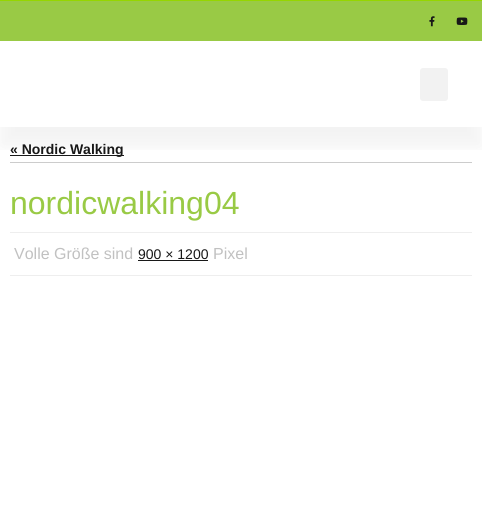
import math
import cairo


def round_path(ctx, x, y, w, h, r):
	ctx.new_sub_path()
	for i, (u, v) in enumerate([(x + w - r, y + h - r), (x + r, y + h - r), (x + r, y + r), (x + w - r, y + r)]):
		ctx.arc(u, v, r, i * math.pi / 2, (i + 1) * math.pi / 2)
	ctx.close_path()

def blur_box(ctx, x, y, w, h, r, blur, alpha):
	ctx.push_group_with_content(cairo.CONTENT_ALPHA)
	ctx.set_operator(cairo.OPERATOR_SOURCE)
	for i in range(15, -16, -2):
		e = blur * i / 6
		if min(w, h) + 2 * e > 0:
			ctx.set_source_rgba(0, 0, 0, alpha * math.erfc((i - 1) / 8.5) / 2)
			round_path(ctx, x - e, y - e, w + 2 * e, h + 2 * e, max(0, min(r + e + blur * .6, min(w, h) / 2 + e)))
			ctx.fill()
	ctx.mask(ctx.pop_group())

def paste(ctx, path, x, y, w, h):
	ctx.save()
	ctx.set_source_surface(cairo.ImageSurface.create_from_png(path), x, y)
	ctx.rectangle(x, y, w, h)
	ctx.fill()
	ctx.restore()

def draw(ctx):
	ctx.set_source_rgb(1, 1, 1)
	ctx.paint()
	ctx.set_source_rgb(0.584, 0.839, 0)
	ctx.rectangle(0, 0, 482, 1)
	ctx.fill()
	ctx.set_source_rgb(0.6, 0.792, 0.271)
	ctx.rectangle(0, 1, 482, 40)
	ctx.fill()
	paste(ctx, 'media/1.png', 429, 16, 6, 11)
	paste(ctx, 'media/2.png', 456, 17, 12, 8)
	ctx.set_source_rgb(0.8, 0.8, 0.8)
	ctx.rectangle(10, 162, 462, 1)
	ctx.fill()
	ctx.set_source_rgb(0.094, 0.094, 0.094)
	ctx.rectangle(10, 155, 114, 1)
	ctx.fill()
	ctx.save()
	ctx.rectangle(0, 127, 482, 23)
	ctx.clip()
	ctx.set_source_rgb(0, 0, 0)
	blur_box(ctx, 0, 61, 482, 86, 0, 10, 0.05)
	ctx.restore()
	ctx.set_source_rgb(0.949, 0.949, 0.949)
	round_path(ctx, 420, 68, 28, 33, 3)
	ctx.fill()
	ctx.select_font_face('Liberation Sans', cairo.FONT_SLANT_NORMAL, cairo.FONT_WEIGHT_BOLD)
	ctx.set_font_size(14)
	ctx.set_source_rgb(0.094, 0.094, 0.094)
	ctx.move_to(10, 154)
	ctx.show_text('« Nordic Walking')
	ctx.select_font_face('Liberation Sans')
	ctx.set_font_size(32)
	ctx.set_source_rgb(0.6, 0.792, 0.271)
	ctx.move_to(10, 214)
	ctx.show_text('nordicwalking04')
	ctx.set_source_rgb(0.933, 0.933, 0.933)
	ctx.rectangle(10, 232, 462, 1)
	ctx.fill()
	ctx.rectangle(10, 275, 462, 1)
	ctx.fill()
	ctx.set_font_size(16)
	ctx.set_source_rgb(0.757, 0.757, 0.757)
	ctx.move_to(14, 259)
	ctx.show_text('Volle Größe sind')
	ctx.set_font_size(14)
	ctx.set_source_rgb(0.094, 0.094, 0.094)
	ctx.move_to(138, 259)
	ctx.show_text('900 × 1200')
	ctx.rectangle(138, 260, 70, 1)
	ctx.fill()
	ctx.set_font_size(16)
	ctx.set_source_rgb(0.757, 0.757, 0.757)
	ctx.move_to(213, 259)
	ctx.show_text('Pixel')


surface = cairo.ImageSurface(cairo.FORMAT_RGB24, 482, 515)
ctx = cairo.Context(surface)
options = cairo.FontOptions()
options.set_hint_metrics(cairo.HINT_METRICS_OFF)
options.set_hint_style(cairo.HINT_STYLE_NONE)
ctx.set_font_options(options)
ctx.set_miter_limit(4)
draw(ctx)
surface.write_to_png('image.png')
